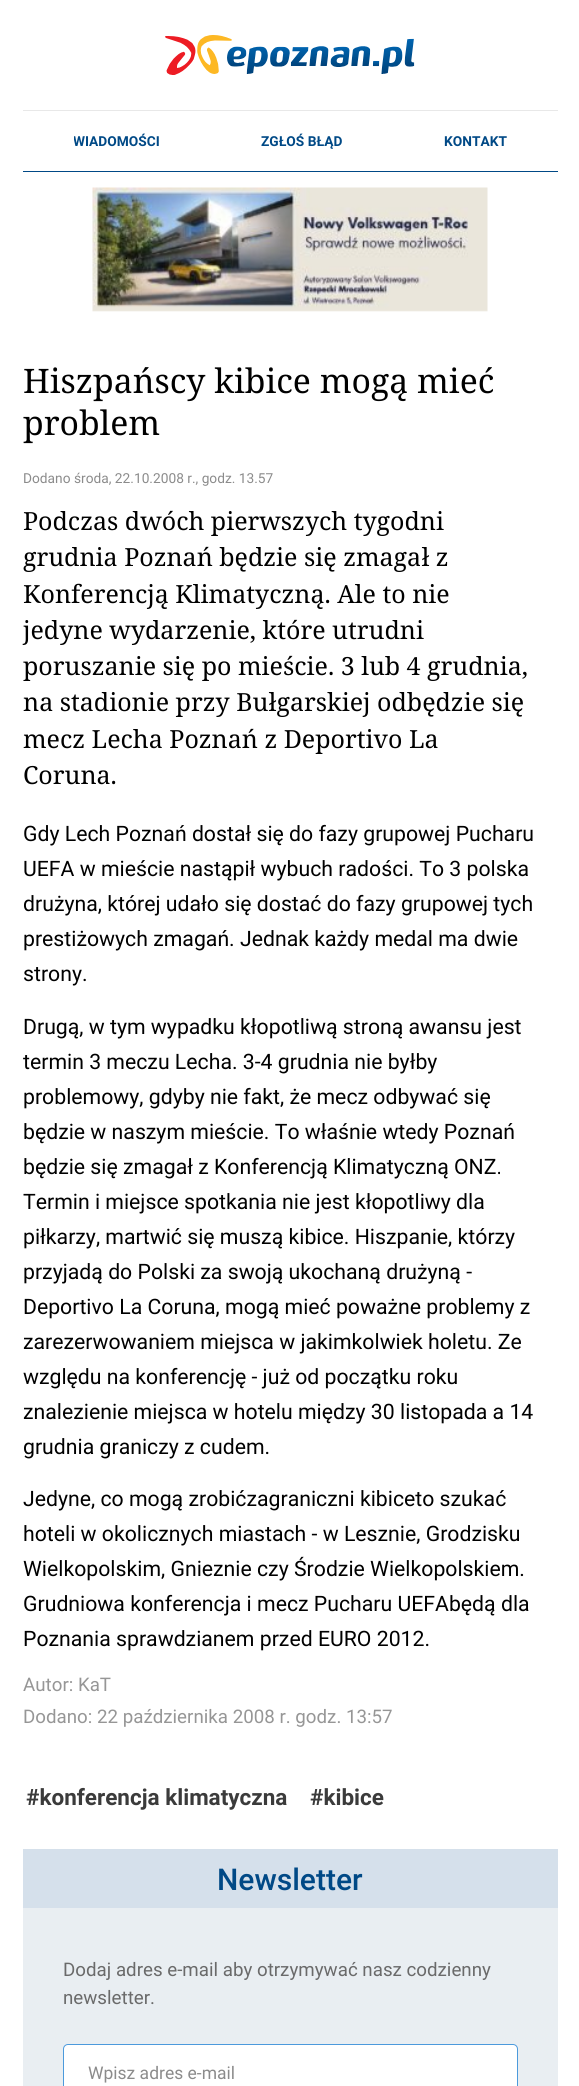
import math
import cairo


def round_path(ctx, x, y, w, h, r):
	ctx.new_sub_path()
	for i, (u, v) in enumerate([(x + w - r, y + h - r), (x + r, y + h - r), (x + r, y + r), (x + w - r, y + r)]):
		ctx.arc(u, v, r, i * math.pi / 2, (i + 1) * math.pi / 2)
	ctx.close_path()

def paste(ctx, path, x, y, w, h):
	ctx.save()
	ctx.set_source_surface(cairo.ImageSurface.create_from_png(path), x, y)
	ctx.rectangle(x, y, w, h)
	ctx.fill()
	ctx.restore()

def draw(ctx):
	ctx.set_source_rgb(1, 1, 1)
	ctx.paint()
	paste(ctx, 'media/1.png', 165, 35, 250, 40)
	ctx.set_source_rgb(0.91, 0.91, 0.91)
	ctx.rectangle(23, 110, 535, 1)
	ctx.fill()
	ctx.set_source_rgb(0, 0.286, 0.525)
	ctx.rectangle(23, 171, 535, 1)
	ctx.fill()
	ctx.save()
	ctx.rectangle(74, 124, 86, 35)
	ctx.clip()
	ctx.select_font_face('Roboto', cairo.FONT_SLANT_NORMAL, cairo.FONT_WEIGHT_BOLD)
	ctx.set_font_size(13.75)
	ctx.move_to(73, 146)
	ctx.show_text('WIADOMOŚCI')
	ctx.restore()
	ctx.select_font_face('Roboto', cairo.FONT_SLANT_NORMAL, cairo.FONT_WEIGHT_BOLD)
	ctx.set_font_size(13.75)
	ctx.move_to(261, 146)
	ctx.show_text('ZGŁOŚ BŁĄD')
	ctx.move_to(444, 146)
	ctx.show_text('KONTAKT')
	paste(ctx, 'media/2.png', 92, 187, 396, 125)
	ctx.select_font_face('Noto Serif')
	ctx.set_font_size(33.75)
	ctx.set_source_rgb(0, 0, 0)
	ctx.move_to(23, 393)
	ctx.show_text('Hiszpańscy kibice mogą mieć')
	ctx.move_to(23, 435)
	ctx.show_text('problem')
	ctx.select_font_face('Roboto')
	ctx.set_font_size(13.75)
	ctx.set_source_rgb(0.545, 0.545, 0.545)
	ctx.move_to(23, 483)
	ctx.show_text('Dodano środa, 22.10.2008 r., godz. 13.57')
	ctx.select_font_face('Noto Serif')
	ctx.set_font_size(25)
	ctx.set_source_rgb(0, 0, 0)
	for x, y, s in [
		(23, 530, 'Podczas dwóch pierwszych tygodni'),
		(23, 566, 'grudnia Poznań będzie się zmagał z'),
		(23, 603, 'Konferencją Klimatyczną. Ale to nie'),
		(23, 639, 'jedyne wydarzenie, które utrudni'),
		(23, 675, 'poruszanie się po mieście. 3 lub 4 grudnia,'),
		(23, 711, 'na stadionie przy Bułgarskiej odbędzie się'),
		(23, 748, 'mecz Lecha Poznań z Deportivo La'),
		(23, 784, 'Coruna.'),
	]:
		ctx.move_to(x, y)
		ctx.show_text(s)
	ctx.select_font_face('Roboto')
	ctx.set_font_size(21.25)
	for x, y, s in [
		(23, 841, 'Gdy Lech Poznań dostał się do fazy grupowej Pucharu'),
		(23, 876, 'UEFA w mieście nastąpił wybuch radości. To 3 polska'),
		(23, 911, 'drużyna, której udało się dostać do fazy grupowej tych'),
		(23, 946, 'prestiżowych zmagań. Jednak każdy medal ma dwie'),
		(23, 981, 'strony.'),
		(23, 1034, 'Drugą, w tym wypadku kłopotliwą stroną awansu jest'),
		(23, 1069, 'termin 3 meczu Lecha. 3-4 grudnia nie byłby'),
		(23, 1104, 'problemowy, gdyby nie fakt, że mecz odbywać się'),
		(23, 1139, 'będzie w naszym mieście. To właśnie wtedy Poznań'),
		(23, 1174, 'będzie się zmagał z Konferencją Klimatyczną ONZ.'),
		(23, 1209, 'Termin i miejsce spotkania nie jest kłopotliwy dla'),
		(23, 1244, 'piłkarzy, martwić się muszą kibice. Hiszpanie, którzy'),
		(23, 1279, 'przyjadą do Polski za swoją ukochaną drużyną -'),
		(23, 1314, 'Deportivo La Coruna, mogą mieć poważne problemy z'),
		(23, 1349, 'zarezerwowaniem miejsca w jakimkolwiek holetu. Ze'),
		(23, 1384, 'względu na konferencję - już od początku roku'),
		(23, 1419, 'znalezienie miejsca w hotelu między 30 listopada a 14'),
		(23, 1454, 'grudnia graniczy z cudem.'),
		(23, 1506, 'Jedyne, co mogą zrobićzagraniczni kibiceto szukać'),
		(23, 1541, 'hoteli w okolicznych miastach - w Lesznie, Grodzisku'),
		(23, 1576, 'Wielkopolskim, Gnieznie czy Środzie Wielkopolskiem.'),
		(23, 1611, 'Grudniowa konferencja i mecz Pucharu UEFAbędą dla'),
		(23, 1646, 'Poznania sprawdzianem przed EURO 2012.'),
	]:
		ctx.move_to(x, y)
		ctx.show_text(s)
	ctx.set_font_size(18.75)
	ctx.set_source_rgb(0.588, 0.588, 0.588)
	ctx.move_to(23, 1691)
	ctx.show_text('Autor: KaT')
	ctx.move_to(23, 1723)
	ctx.show_text('Dodano: 22 października 2008 r. godz. 13:57')
	ctx.select_font_face('Roboto', cairo.FONT_SLANT_NORMAL, cairo.FONT_WEIGHT_BOLD)
	ctx.set_font_size(22.5)
	ctx.set_source_rgb(0.231, 0.231, 0.231)
	ctx.move_to(26, 1805)
	ctx.show_text('#konferencja klimatyczna')
	ctx.move_to(310, 1805)
	ctx.show_text('#kibice')
	ctx.set_source_rgb(0.835, 0.878, 0.918)
	ctx.rectangle(23, 1849, 535, 59)
	ctx.fill()
	ctx.select_font_face('Roboto Medium')
	ctx.set_font_size(30)
	ctx.set_source_rgb(0, 0.286, 0.525)
	ctx.move_to(217, 1890)
	ctx.show_text('Newsletter')
	ctx.set_source_rgb(0.914, 0.933, 0.949)
	ctx.rectangle(23, 1908, 535, 178)
	ctx.fill()
	ctx.select_font_face('Roboto')
	ctx.set_font_size(18.75)
	ctx.set_source_rgb(0.416, 0.416, 0.416)
	ctx.move_to(63, 1976)
	ctx.show_text('Dodaj adres e-mail aby otrzymywać nasz codzienny')
	ctx.move_to(63, 2004)
	ctx.show_text('newsletter.')
	ctx.set_source_rgb(1, 1, 1)
	round_path(ctx, 63, 2044, 455, 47, 5)
	ctx.fill()
	round_path(ctx, 63.5, 2044.5, 454, 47, 4.5)
	ctx.set_source_rgba(0, 0.439, 0.808, 0.7)
	ctx.set_line_width(1)
	ctx.stroke()
	ctx.set_font_size(17.5)
	ctx.set_source_rgb(0.545, 0.545, 0.545)
	ctx.move_to(88, 2079)
	ctx.show_text('Wpisz adres e-mail')


surface = cairo.ImageSurface(cairo.FORMAT_RGB24, 579, 2086)
ctx = cairo.Context(surface)
options = cairo.FontOptions()
options.set_hint_metrics(cairo.HINT_METRICS_OFF)
options.set_hint_style(cairo.HINT_STYLE_NONE)
ctx.set_font_options(options)
ctx.set_miter_limit(4)
draw(ctx)
surface.write_to_png('image.png')
